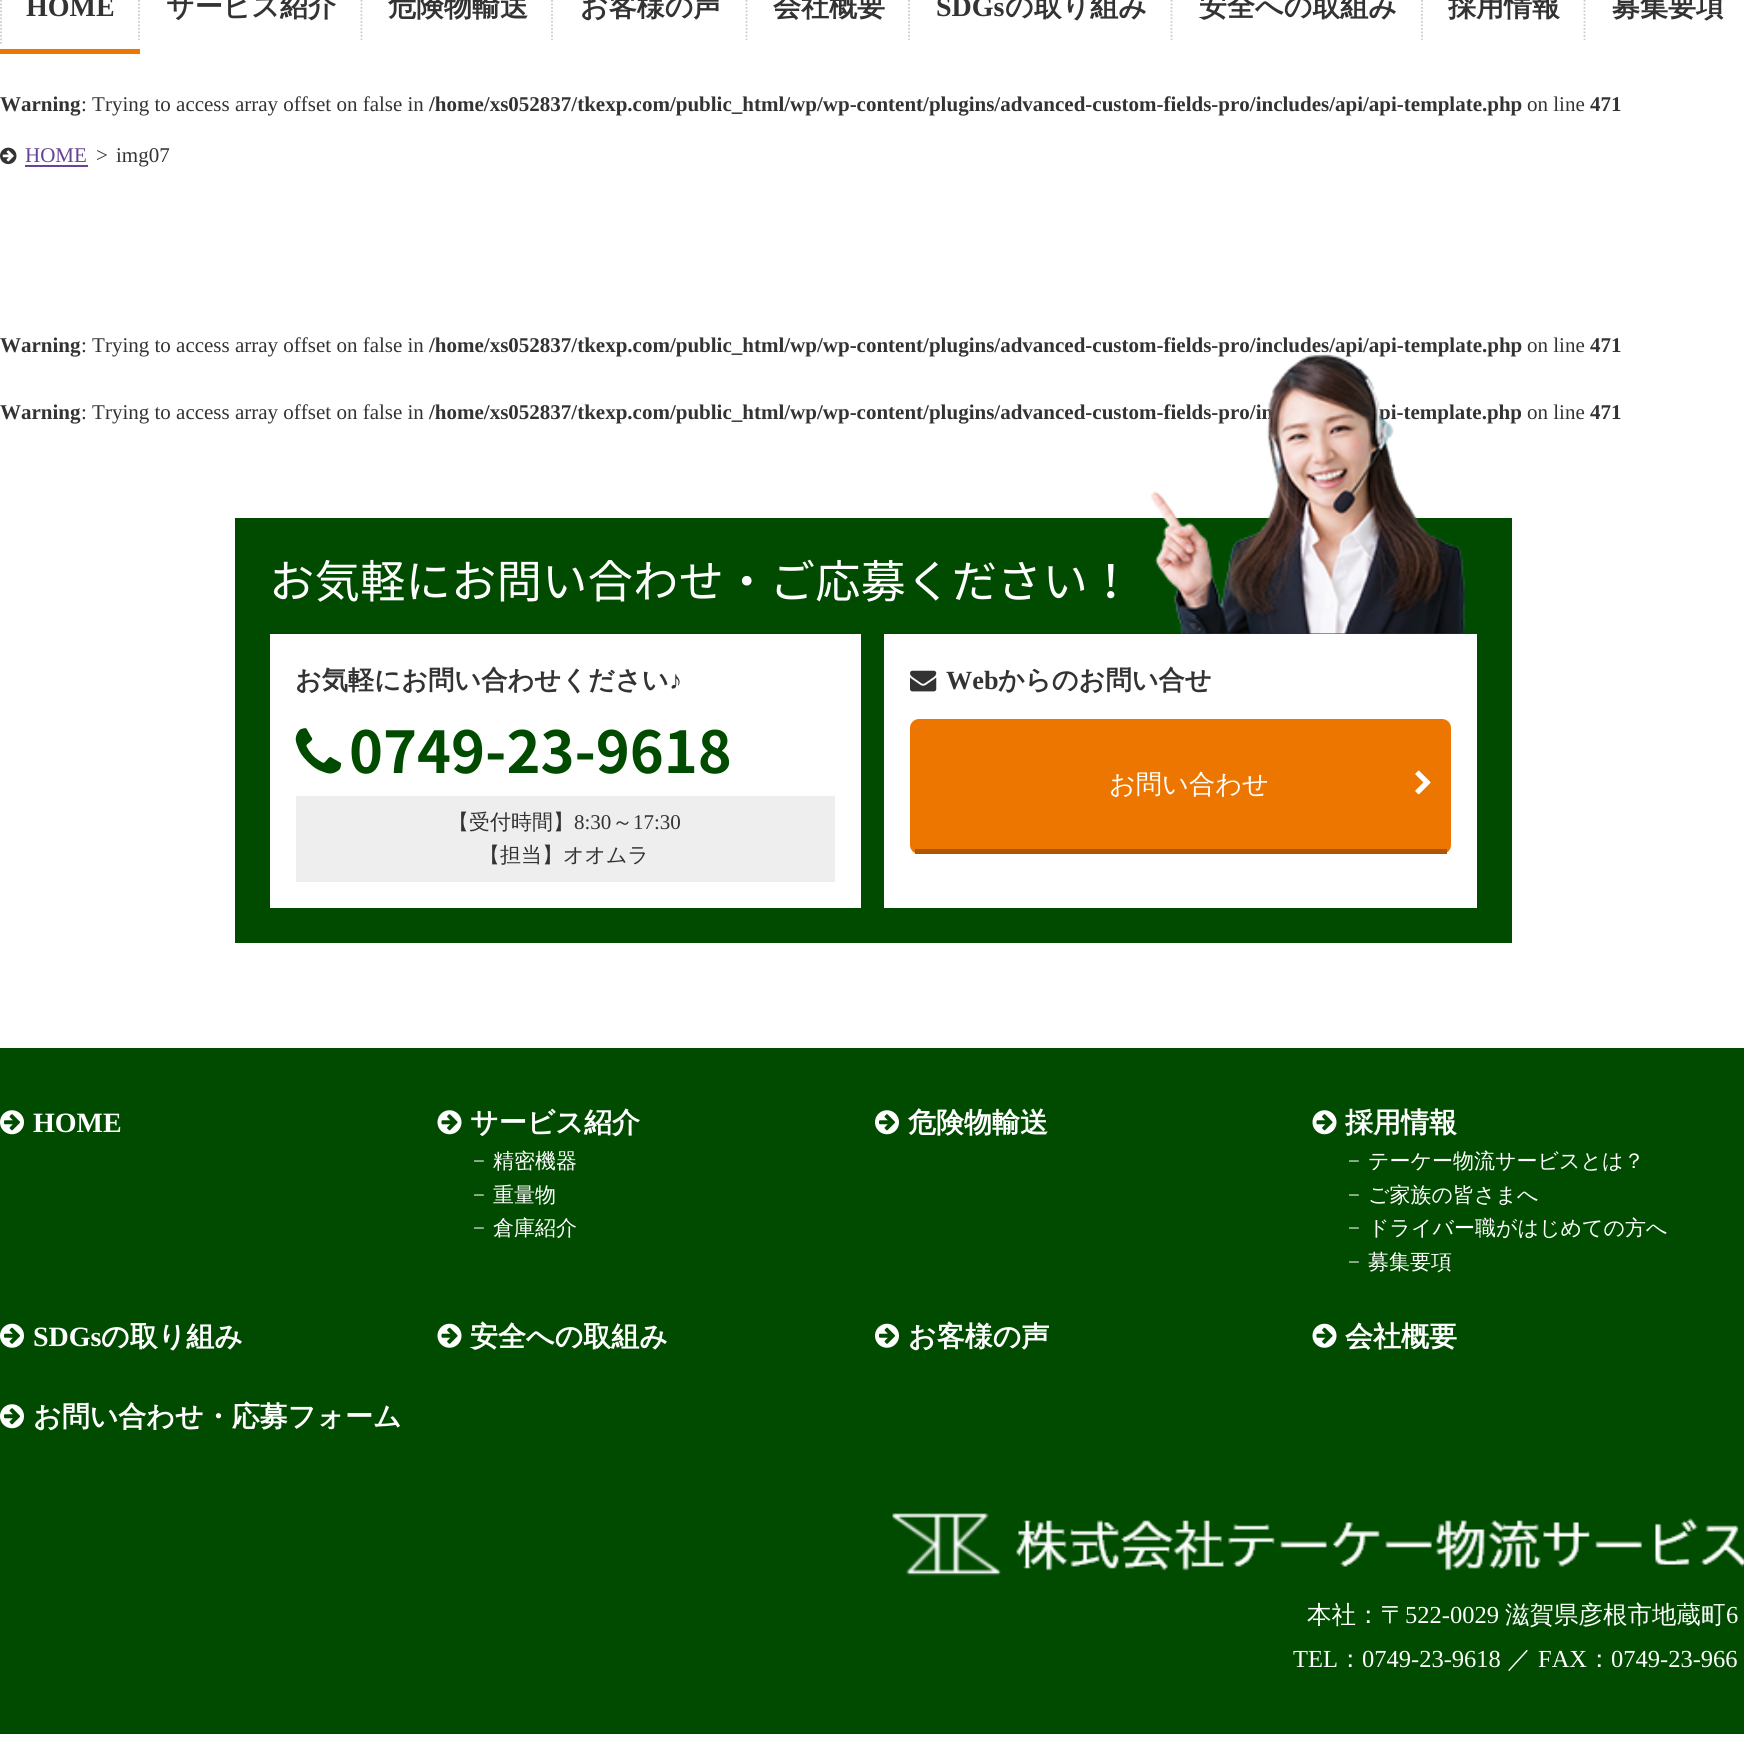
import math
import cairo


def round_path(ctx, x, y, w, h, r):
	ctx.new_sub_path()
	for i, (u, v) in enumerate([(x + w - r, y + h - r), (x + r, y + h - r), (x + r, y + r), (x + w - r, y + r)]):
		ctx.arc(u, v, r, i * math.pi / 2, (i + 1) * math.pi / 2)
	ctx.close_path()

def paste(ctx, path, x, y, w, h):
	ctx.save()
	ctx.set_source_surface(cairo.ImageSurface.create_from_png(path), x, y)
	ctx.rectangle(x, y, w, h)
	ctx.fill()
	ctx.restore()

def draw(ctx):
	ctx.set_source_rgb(1, 1, 1)
	ctx.paint()
	ctx.new_path()
	ctx.move_to(1, -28)
	ctx.line_to(1, 45.5)
	ctx.set_source_rgb(0.8, 0.8, 0.8)
	ctx.set_line_width(1.8)
	ctx.set_dash([1.75, 1.75])
	ctx.stroke()
	ctx.set_source_rgb(0.929, 0.463, 0)
	ctx.rectangle(0, 49, 140, 5)
	ctx.fill()
	ctx.select_font_face('Liberation Serif', cairo.FONT_SLANT_NORMAL, cairo.FONT_WEIGHT_BOLD)
	ctx.set_font_size(28)
	ctx.set_source_rgb(0.2, 0.2, 0.2)
	ctx.move_to(26, 16)
	ctx.show_text('HOME')
	ctx.new_path()
	ctx.move_to(139, -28)
	ctx.line_to(139, 40)
	ctx.set_source_rgb(0.8, 0.8, 0.8)
	ctx.stroke()
	ctx.select_font_face('WenQuanYi Zen Hei', cairo.FONT_SLANT_NORMAL, cairo.FONT_WEIGHT_BOLD)
	ctx.set_source_rgb(0.2, 0.2, 0.2)
	ctx.move_to(166, 16)
	ctx.show_text('サービス紹介')
	ctx.new_path()
	ctx.move_to(361.5, -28)
	ctx.line_to(361.5, 40)
	ctx.set_source_rgb(0.8, 0.8, 0.8)
	ctx.stroke()
	ctx.set_source_rgb(0.2, 0.2, 0.2)
	ctx.move_to(388, 16)
	ctx.show_text('危険物輸送')
	ctx.new_path()
	ctx.move_to(552, -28)
	ctx.line_to(552, 40)
	ctx.set_source_rgb(0.8, 0.8, 0.8)
	ctx.stroke()
	ctx.set_source_rgb(0.2, 0.2, 0.2)
	ctx.move_to(580, 16)
	ctx.show_text('お客様の声')
	ctx.new_path()
	ctx.move_to(746.5, -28)
	ctx.line_to(746.5, 40)
	ctx.set_source_rgb(0.8, 0.8, 0.8)
	ctx.stroke()
	ctx.set_source_rgb(0.2, 0.2, 0.2)
	ctx.move_to(773, 16)
	ctx.show_text('会社概要')
	ctx.new_path()
	ctx.move_to(909, -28)
	ctx.line_to(909, 40)
	ctx.set_source_rgb(0.8, 0.8, 0.8)
	ctx.stroke()
	ctx.select_font_face('Liberation Serif', cairo.FONT_SLANT_NORMAL, cairo.FONT_WEIGHT_BOLD)
	ctx.set_source_rgb(0.2, 0.2, 0.2)
	ctx.move_to(936, 16)
	ctx.show_text('SDGs')
	ctx.select_font_face('WenQuanYi Zen Hei', cairo.FONT_SLANT_NORMAL, cairo.FONT_WEIGHT_BOLD)
	ctx.move_to(1005, 16)
	ctx.show_text('の取り組み')
	ctx.new_path()
	ctx.move_to(1171.5, -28)
	ctx.line_to(1171.5, 40)
	ctx.set_source_rgb(0.8, 0.8, 0.8)
	ctx.stroke()
	ctx.set_source_rgb(0.2, 0.2, 0.2)
	ctx.move_to(1199, 16)
	ctx.show_text('安全への取組み')
	ctx.new_path()
	ctx.move_to(1422, -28)
	ctx.line_to(1422, 40)
	ctx.set_source_rgb(0.8, 0.8, 0.8)
	ctx.stroke()
	ctx.set_source_rgb(0.2, 0.2, 0.2)
	ctx.move_to(1448, 16)
	ctx.show_text('採用情報')
	ctx.new_path()
	ctx.move_to(1584.5, -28)
	ctx.line_to(1584.5, 40)
	ctx.set_source_rgb(0.8, 0.8, 0.8)
	ctx.stroke()
	ctx.set_source_rgb(0.2, 0.2, 0.2)
	ctx.move_to(1612, 16)
	ctx.show_text('募集要項')
	ctx.select_font_face('Liberation Serif', cairo.FONT_SLANT_NORMAL, cairo.FONT_WEIGHT_BOLD)
	ctx.set_font_size(21)
	ctx.move_to(0, 111)
	ctx.show_text('Warning')
	ctx.select_font_face('Liberation Serif')
	ctx.move_to(81, 111)
	ctx.show_text(': Trying to access array offset on false in')
	ctx.select_font_face('Liberation Serif', cairo.FONT_SLANT_NORMAL, cairo.FONT_WEIGHT_BOLD)
	ctx.move_to(429, 111)
	ctx.show_text('/home/xs052837/tkexp.com/public_html/wp/wp-content/plugins/advanced-custom-fields-pro/includes/api/api-template.php')
	ctx.select_font_face('Liberation Serif')
	ctx.move_to(1527, 111)
	ctx.show_text('on line')
	ctx.select_font_face('Liberation Serif', cairo.FONT_SLANT_NORMAL, cairo.FONT_WEIGHT_BOLD)
	ctx.move_to(1590, 111)
	ctx.show_text('471')
	paste(ctx, 'media/1.png', 0, 147, 17, 18)
	ctx.select_font_face('Liberation Serif')
	ctx.set_source_rgb(0.4, 0.263, 0.592)
	ctx.move_to(25, 162)
	ctx.show_text('HOME')
	ctx.rectangle(25, 165, 63, 2)
	ctx.fill()
	ctx.set_source_rgb(0.2, 0.2, 0.2)
	ctx.move_to(96, 162)
	ctx.show_text('>')
	ctx.move_to(116, 162)
	ctx.show_text('img07')
	ctx.select_font_face('Liberation Serif', cairo.FONT_SLANT_NORMAL, cairo.FONT_WEIGHT_BOLD)
	ctx.move_to(0, 352)
	ctx.show_text('Warning')
	ctx.select_font_face('Liberation Serif')
	ctx.move_to(81, 352)
	ctx.show_text(': Trying to access array offset on false in')
	ctx.select_font_face('Liberation Serif', cairo.FONT_SLANT_NORMAL, cairo.FONT_WEIGHT_BOLD)
	ctx.move_to(429, 352)
	ctx.show_text('/home/xs052837/tkexp.com/public_html/wp/wp-content/plugins/advanced-custom-fields-pro/includes/api/api-template.php')
	ctx.select_font_face('Liberation Serif')
	ctx.move_to(1527, 352)
	ctx.show_text('on line')
	ctx.select_font_face('Liberation Serif', cairo.FONT_SLANT_NORMAL, cairo.FONT_WEIGHT_BOLD)
	ctx.move_to(1590, 352)
	ctx.show_text('471')
	ctx.move_to(0, 419)
	ctx.show_text('Warning')
	ctx.select_font_face('Liberation Serif')
	ctx.move_to(81, 419)
	ctx.show_text(': Trying to access array offset on false in')
	ctx.select_font_face('Liberation Serif', cairo.FONT_SLANT_NORMAL, cairo.FONT_WEIGHT_BOLD)
	ctx.move_to(429, 419)
	ctx.show_text('/home/xs052837/tkexp.com/public_html/wp/wp-content/plugins/advanced-custom-fields-pro/in')
	ctx.move_to(1379, 419)
	ctx.show_text('pi-template.php')
	ctx.select_font_face('Liberation Serif')
	ctx.move_to(1527, 419)
	ctx.show_text('on line')
	ctx.select_font_face('Liberation Serif', cairo.FONT_SLANT_NORMAL, cairo.FONT_WEIGHT_BOLD)
	ctx.move_to(1590, 419)
	ctx.show_text('471')
	ctx.set_source_rgb(0, 0.294, 0)
	ctx.rectangle(235, 518, 1277, 425)
	ctx.fill()
	ctx.select_font_face('Noto Sans JP')
	ctx.set_font_size(45.5)
	ctx.set_source_rgb(1, 1, 1)
	ctx.move_to(269, 598)
	ctx.show_text('お気軽にお問い合わせ・ご応募ください！')
	paste(ctx, 'media/2.png', 1150, 353, 316, 281)
	ctx.rectangle(270, 634, 591, 274)
	ctx.fill()
	ctx.select_font_face('WenQuanYi Zen Hei', cairo.FONT_SLANT_NORMAL, cairo.FONT_WEIGHT_BOLD)
	ctx.set_font_size(26.25)
	ctx.set_source_rgb(0.2, 0.2, 0.2)
	ctx.move_to(295, 689)
	ctx.show_text('お気軽にお問い合わせください')
	ctx.select_font_face('Liberation Serif', cairo.FONT_SLANT_NORMAL, cairo.FONT_WEIGHT_BOLD)
	ctx.move_to(669, 689)
	ctx.show_text('♪')
	paste(ctx, 'media/3.png', 295, 728, 47, 46)
	ctx.select_font_face('Noto Sans JP', cairo.FONT_SLANT_NORMAL, cairo.FONT_WEIGHT_BOLD)
	ctx.set_font_size(57.75)
	ctx.set_source_rgb(0, 0.294, 0)
	ctx.move_to(349, 773)
	ctx.show_text('0749-23-9618')
	ctx.set_source_rgb(0.933, 0.933, 0.933)
	ctx.rectangle(296, 796, 539, 86)
	ctx.fill()
	ctx.select_font_face('WenQuanYi Zen Hei Medium')
	ctx.set_font_size(21)
	ctx.set_source_rgb(0.2, 0.2, 0.2)
	ctx.move_to(448, 829)
	ctx.show_text('【受付時間】')
	ctx.select_font_face('Liberation Serif')
	ctx.move_to(574, 829)
	ctx.show_text('8:30')
	ctx.select_font_face('WenQuanYi Zen Hei Medium')
	ctx.move_to(612, 829)
	ctx.show_text('～')
	ctx.select_font_face('Liberation Serif')
	ctx.move_to(633, 829)
	ctx.show_text('17:30')
	ctx.select_font_face('WenQuanYi Zen Hei Medium')
	ctx.move_to(479, 862)
	ctx.show_text('【担当】オオムラ')
	ctx.set_source_rgb(1, 1, 1)
	ctx.rectangle(884, 634, 593, 274)
	ctx.fill()
	paste(ctx, 'media/4.png', 910, 670, 27, 22)
	ctx.select_font_face('Liberation Serif', cairo.FONT_SLANT_NORMAL, cairo.FONT_WEIGHT_BOLD)
	ctx.set_font_size(26.25)
	ctx.set_source_rgb(0.2, 0.2, 0.2)
	ctx.move_to(946, 689)
	ctx.show_text('Web')
	ctx.select_font_face('WenQuanYi Zen Hei', cairo.FONT_SLANT_NORMAL, cairo.FONT_WEIGHT_BOLD)
	ctx.move_to(998, 689)
	ctx.show_text('からのお問い合せ')
	ctx.set_source_rgb(0.929, 0.463, 0)
	round_path(ctx, 910, 719, 541, 135, 9)
	ctx.fill()
	ctx.set_source_rgb(0.682, 0.341, 0)
	ctx.rectangle(915, 849, 532, 5)
	ctx.fill()
	ctx.select_font_face('WenQuanYi Zen Hei Medium')
	ctx.set_source_rgb(1, 1, 1)
	ctx.move_to(1109, 793)
	ctx.show_text('お問い合わせ')
	paste(ctx, 'media/5.png', 1415, 770, 16, 25)
	ctx.set_source_rgb(0, 0.294, 0)
	ctx.rectangle(0, 1048, 1744, 686)
	ctx.fill()
	paste(ctx, 'media/6.png', 0, 1110, 24, 25)
	ctx.select_font_face('Liberation Serif', cairo.FONT_SLANT_NORMAL, cairo.FONT_WEIGHT_BOLD)
	ctx.set_font_size(28)
	ctx.set_source_rgb(1, 1, 1)
	ctx.move_to(33, 1132)
	ctx.show_text('HOME')
	paste(ctx, 'media/7.png', 437, 1110, 25, 25)
	ctx.select_font_face('WenQuanYi Zen Hei', cairo.FONT_SLANT_NORMAL, cairo.FONT_WEIGHT_BOLD)
	ctx.move_to(470, 1132)
	ctx.show_text('サービス紹介')
	ctx.select_font_face('Liberation Serif')
	ctx.set_font_size(21)
	ctx.move_to(473, 1168)
	ctx.show_text('−')
	ctx.select_font_face('WenQuanYi Zen Hei Medium')
	ctx.move_to(493, 1168)
	ctx.show_text('精密機器')
	ctx.select_font_face('Liberation Serif')
	ctx.move_to(473, 1202)
	ctx.show_text('−')
	ctx.select_font_face('WenQuanYi Zen Hei Medium')
	ctx.move_to(493, 1202)
	ctx.show_text('重量物')
	ctx.select_font_face('Liberation Serif')
	ctx.move_to(473, 1235)
	ctx.show_text('−')
	ctx.select_font_face('WenQuanYi Zen Hei Medium')
	ctx.move_to(493, 1235)
	ctx.show_text('倉庫紹介')
	paste(ctx, 'media/6.png', 875, 1110, 24, 25)
	ctx.select_font_face('WenQuanYi Zen Hei', cairo.FONT_SLANT_NORMAL, cairo.FONT_WEIGHT_BOLD)
	ctx.set_font_size(28)
	ctx.move_to(908, 1132)
	ctx.show_text('危険物輸送')
	paste(ctx, 'media/7.png', 1312, 1110, 25, 25)
	ctx.move_to(1345, 1132)
	ctx.show_text('採用情報')
	ctx.select_font_face('Liberation Serif')
	ctx.set_font_size(21)
	ctx.move_to(1348, 1168)
	ctx.show_text('−')
	ctx.select_font_face('WenQuanYi Zen Hei Medium')
	ctx.move_to(1368, 1168)
	ctx.show_text('テーケー物流サービスとは？')
	ctx.select_font_face('Liberation Serif')
	ctx.move_to(1348, 1202)
	ctx.show_text('−')
	ctx.select_font_face('WenQuanYi Zen Hei Medium')
	ctx.move_to(1368, 1202)
	ctx.show_text('ご家族の皆さまへ')
	ctx.select_font_face('Liberation Serif')
	ctx.move_to(1348, 1235)
	ctx.show_text('−')
	ctx.select_font_face('WenQuanYi Zen Hei Medium')
	ctx.move_to(1368, 1235)
	ctx.show_text('ドライバー職がはじめての方へ')
	ctx.select_font_face('Liberation Serif')
	ctx.move_to(1348, 1269)
	ctx.show_text('−')
	ctx.select_font_face('WenQuanYi Zen Hei Medium')
	ctx.move_to(1368, 1269)
	ctx.show_text('募集要項')
	paste(ctx, 'media/8.png', 0, 1323, 24, 25)
	ctx.select_font_face('Liberation Serif', cairo.FONT_SLANT_NORMAL, cairo.FONT_WEIGHT_BOLD)
	ctx.set_font_size(28)
	ctx.move_to(33, 1346)
	ctx.show_text('SDGs')
	ctx.select_font_face('WenQuanYi Zen Hei', cairo.FONT_SLANT_NORMAL, cairo.FONT_WEIGHT_BOLD)
	ctx.move_to(101, 1346)
	ctx.show_text('の取り組み')
	paste(ctx, 'media/9.png', 437, 1323, 25, 25)
	ctx.move_to(470, 1346)
	ctx.show_text('安全への取組み')
	paste(ctx, 'media/8.png', 875, 1323, 24, 25)
	ctx.move_to(908, 1346)
	ctx.show_text('お客様の声')
	paste(ctx, 'media/9.png', 1312, 1323, 25, 25)
	ctx.move_to(1345, 1346)
	ctx.show_text('会社概要')
	paste(ctx, 'media/6.png', 0, 1404, 24, 25)
	ctx.move_to(33, 1426)
	ctx.show_text('お問い合わせ・応募フォーム')
	paste(ctx, 'media/10.png', 892, 1513, 852, 63)
	ctx.select_font_face('WenQuanYi Zen Hei Medium')
	ctx.set_font_size(24.5)
	ctx.move_to(1307, 1623)
	ctx.show_text('本社：〒')
	ctx.select_font_face('Liberation Serif')
	ctx.move_to(1405, 1623)
	ctx.show_text('522-0029')
	ctx.select_font_face('WenQuanYi Zen Hei Medium')
	ctx.move_to(1505, 1623)
	ctx.show_text('滋賀県彦根市地蔵町')
	ctx.select_font_face('Liberation Serif')
	ctx.move_to(1726, 1623)
	ctx.show_text('6')
	ctx.move_to(1293, 1667)
	ctx.show_text('TEL')
	ctx.select_font_face('WenQuanYi Zen Hei Medium')
	ctx.move_to(1338, 1667)
	ctx.show_text('：')
	ctx.select_font_face('Liberation Serif')
	ctx.move_to(1362, 1667)
	ctx.show_text('0749-23-9618')
	ctx.select_font_face('WenQuanYi Zen Hei Medium')
	ctx.move_to(1507, 1667)
	ctx.show_text('／')
	ctx.select_font_face('Liberation Serif')
	ctx.move_to(1538, 1667)
	ctx.show_text('FAX')
	ctx.select_font_face('WenQuanYi Zen Hei Medium')
	ctx.move_to(1587, 1667)
	ctx.show_text('：')
	ctx.select_font_face('Liberation Serif')
	ctx.move_to(1611, 1667)
	ctx.show_text('0749-23-966')


surface = cairo.ImageSurface(cairo.FORMAT_RGB24, 1744, 1737)
ctx = cairo.Context(surface)
options = cairo.FontOptions()
options.set_hint_metrics(cairo.HINT_METRICS_OFF)
options.set_hint_style(cairo.HINT_STYLE_NONE)
ctx.set_font_options(options)
ctx.set_miter_limit(4)
draw(ctx)
surface.write_to_png('image.png')
